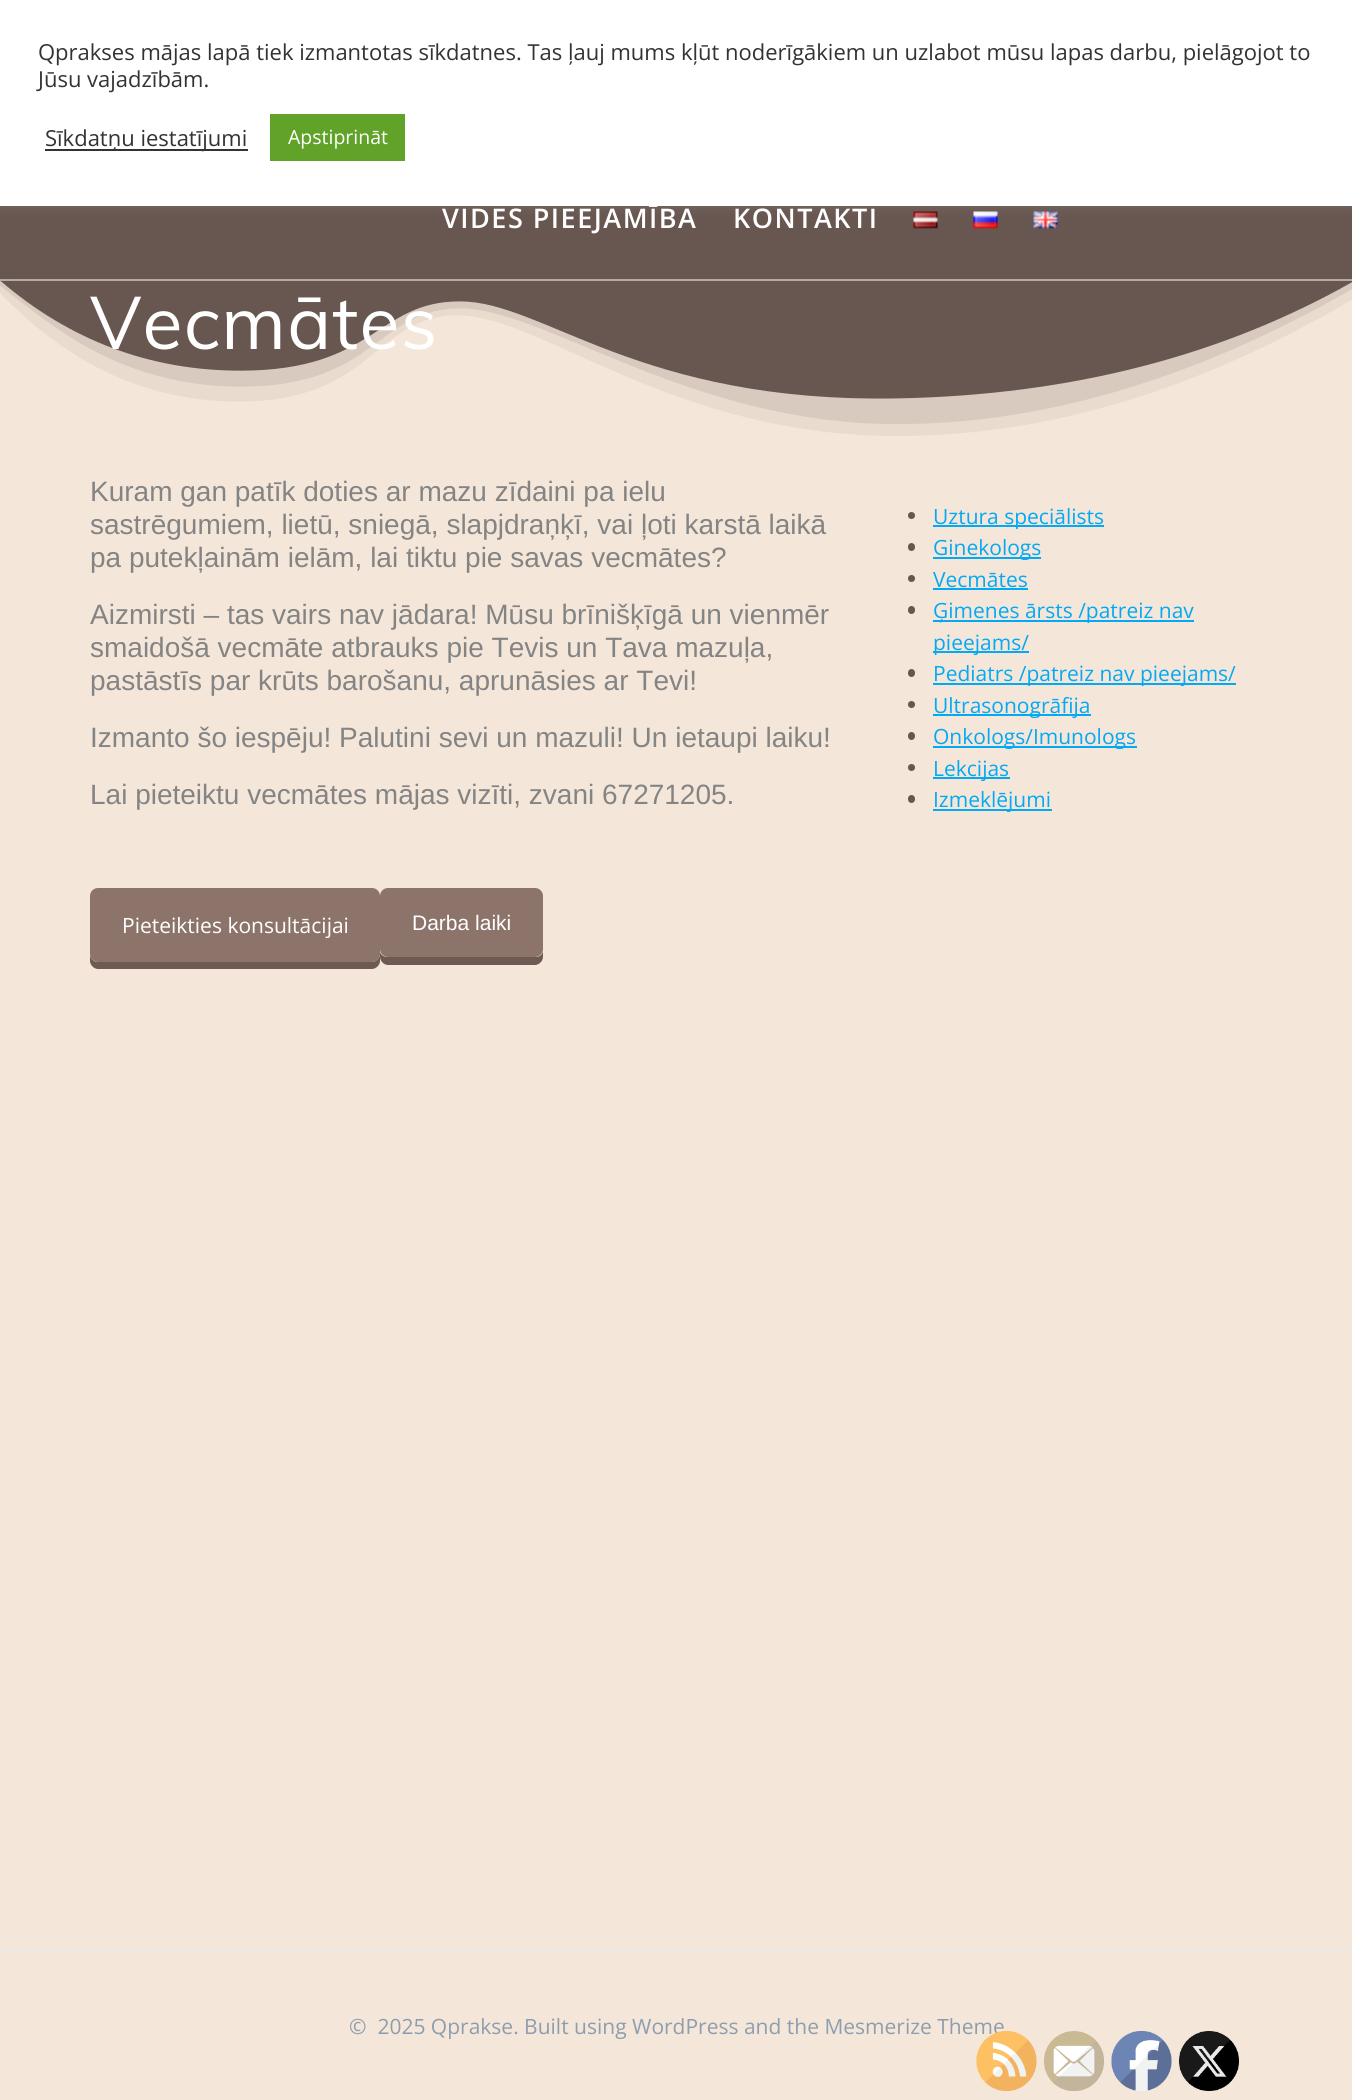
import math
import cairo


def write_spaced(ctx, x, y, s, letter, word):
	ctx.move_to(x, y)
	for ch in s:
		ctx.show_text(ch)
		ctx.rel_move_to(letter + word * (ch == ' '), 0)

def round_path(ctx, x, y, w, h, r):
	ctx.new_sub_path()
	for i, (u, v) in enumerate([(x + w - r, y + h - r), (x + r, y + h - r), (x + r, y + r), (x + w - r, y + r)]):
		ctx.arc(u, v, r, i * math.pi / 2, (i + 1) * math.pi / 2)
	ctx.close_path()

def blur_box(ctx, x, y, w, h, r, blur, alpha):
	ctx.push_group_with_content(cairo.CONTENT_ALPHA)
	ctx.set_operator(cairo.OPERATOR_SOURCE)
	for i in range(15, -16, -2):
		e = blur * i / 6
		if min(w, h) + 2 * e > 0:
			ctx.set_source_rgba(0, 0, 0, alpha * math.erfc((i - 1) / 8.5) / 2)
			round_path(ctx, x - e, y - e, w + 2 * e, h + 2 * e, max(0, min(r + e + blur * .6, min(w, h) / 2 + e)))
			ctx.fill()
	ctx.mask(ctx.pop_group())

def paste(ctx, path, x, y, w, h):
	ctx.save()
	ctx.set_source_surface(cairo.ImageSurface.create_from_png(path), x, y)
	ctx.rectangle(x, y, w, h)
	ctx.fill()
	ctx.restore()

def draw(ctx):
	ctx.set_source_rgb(0.957, 0.906, 0.851)
	ctx.paint()
	ctx.set_source_rgb(0.408, 0.337, 0.314)
	ctx.rectangle(0, 206, 1352, 230)
	ctx.fill()
	paste(ctx, 'media/1.png', 913, 211, 25, 18)
	paste(ctx, 'media/2.png', 973, 211, 25, 18)
	paste(ctx, 'media/3.png', 1033, 211, 25, 18)
	ctx.set_source_rgb(0.675, 0.671, 0.671)
	blur_box(ctx, 0, -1, 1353, 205, 0, 7.5, 0.3)
	ctx.set_source_rgb(1, 1, 1)
	ctx.rectangle(0, 0, 1352, 206)
	ctx.fill()
	ctx.select_font_face('Open Sans')
	ctx.set_font_size(22)
	ctx.set_source_rgb(0.2, 0.2, 0.2)
	ctx.move_to(38, 60)
	ctx.show_text('Qprakses mājas lapā tiek izmantotas sīkdatnes. Tas ļauj mums kļūt noderīgākiem un uzlabot mūsu lapas darbu, pielāgojot to')
	ctx.move_to(38, 87)
	ctx.show_text('Jūsu vajadzībām.')
	ctx.rectangle(45, 149, 203, 2)
	ctx.fill()
	ctx.move_to(45, 146)
	ctx.show_text('Sīkdatņu iestatījumi')
	ctx.set_source_rgb(0.38, 0.635, 0.161)
	ctx.rectangle(270, 114, 135, 47)
	ctx.fill()
	ctx.set_font_size(19.5)
	ctx.set_source_rgb(1, 1, 1)
	ctx.move_to(288, 144)
	ctx.show_text('Apstiprināt')
	ctx.set_source_rgb(0.706, 0.671, 0.659)
	ctx.rectangle(0, 279, 1352, 2)
	ctx.fill()
	ctx.select_font_face('Open Sans SemiBold')
	ctx.set_font_size(27)
	ctx.set_source_rgb(1, 1, 1)
	write_spaced(ctx, 442, 228, 'VIDES PIEEJAMĪBA', 1.5, 0)
	write_spaced(ctx, 733, 228, 'KONTAKTI', 1.5, 0)
	paste(ctx, 'media/4.png', 0, 281, 1352, 171)
	ctx.select_font_face('Muli')
	ctx.set_font_size(73.5)
	write_spaced(ctx, 90, 349, 'Vecmātes', 1.25, 0)
	ctx.select_font_face('Liberation Sans')
	ctx.set_font_size(28)
	ctx.set_source_rgb(0.518, 0.518, 0.522)
	for x, y, s in [
		(90, 501, 'Kuram gan patīk doties ar mazu zīdaini pa ielu'),
		(90, 534, 'sastrēgumiem, lietū, sniegā, slapjdraņķī, vai ļoti karstā laikā'),
		(90, 567, 'pa putekļainām ielām, lai tiktu pie savas vecmātes?'),
		(90, 624, 'Aizmirsti – tas vairs nav jādara! Mūsu brīnišķīgā un vienmēr'),
		(90, 657, 'smaidošā vecmāte atbrauks pie Tevis un Tava mazuļa,'),
		(90, 690, 'pastāstīs par krūts barošanu, aprunāsies ar Tevi!'),
		(90, 747, 'Izmanto šo iespēju! Palutini sevi un mazuli! Un ietaupi laiku!'),
		(90, 804, 'Lai pieteiktu vecmātes mājas vizīti, zvani 67271205.'),
	]:
		ctx.move_to(x, y)
		ctx.show_text(s)
	ctx.set_source_rgb(0.435, 0.353, 0.325)
	ctx.new_path()
	ctx.move_to(90, 954)
	ctx.line_to(90, 961)
	ctx.curve_to(90, 965, 94, 969, 98, 969)
	ctx.line_to(372, 969)
	ctx.curve_to(376, 969, 380, 965, 380, 961)
	ctx.line_to(380, 904)
	ctx.line_to(380, 901)
	ctx.line_to(380, 954)
	ctx.curve_to(380, 958, 376, 962, 372, 962)
	ctx.line_to(98, 962)
	ctx.curve_to(93, 962, 90, 958, 90, 954)
	ctx.close_path()
	ctx.fill()
	ctx.set_source_rgb(0.553, 0.455, 0.42)
	round_path(ctx, 90, 888, 290, 74, 8)
	ctx.fill()
	ctx.select_font_face('Open Sans')
	ctx.set_font_size(21)
	ctx.set_source_rgb(1, 1, 1)
	ctx.move_to(122, 933)
	ctx.show_text('Pieteikties konsultācijai')
	ctx.set_source_rgb(0.435, 0.353, 0.325)
	ctx.new_path()
	ctx.move_to(380, 952)
	ctx.line_to(380, 957)
	ctx.curve_to(380, 961, 384, 965, 388, 965)
	ctx.line_to(535, 965)
	ctx.curve_to(539, 965, 543, 961, 543, 957)
	ctx.line_to(543, 950)
	ctx.curve_to(543, 954, 540, 957, 536, 957)
	ctx.line_to(387, 957)
	ctx.curve_to(384, 957, 381, 955, 380, 952)
	ctx.close_path()
	ctx.fill()
	ctx.set_source_rgb(0.553, 0.455, 0.42)
	round_path(ctx, 380, 888, 163, 69, 8)
	ctx.fill()
	ctx.select_font_face('Liberation Sans')
	ctx.set_source_rgb(1, 1, 1)
	ctx.move_to(412, 930)
	ctx.show_text('Darba laiki')
	ctx.set_source_rgb(0.412, 0.337, 0.31)
	ctx.new_path()
	ctx.arc(911.5, 515.5, 3.5, 0, 2 * math.pi)
	ctx.fill()
	ctx.set_source_rgb(0.012, 0.663, 0.957)
	ctx.rectangle(933, 525, 171, 2)
	ctx.fill()
	ctx.select_font_face('Open Sans')
	ctx.move_to(933, 524)
	ctx.show_text('Uztura speciālists')
	ctx.set_source_rgb(0.412, 0.337, 0.31)
	round_path(ctx, 908, 543, 7, 8, 3.5)
	ctx.fill()
	ctx.set_source_rgb(0.012, 0.663, 0.957)
	ctx.rectangle(933, 557, 108, 2)
	ctx.fill()
	ctx.move_to(933, 555)
	ctx.show_text('Ginekologs')
	ctx.set_source_rgb(0.412, 0.337, 0.31)
	ctx.new_path()
	ctx.arc(911.5, 578.5, 3.5, 0, 2 * math.pi)
	ctx.fill()
	ctx.set_source_rgb(0.012, 0.663, 0.957)
	ctx.move_to(933, 587)
	ctx.show_text('Vecmātes')
	ctx.rectangle(933, 588, 95, 2)
	ctx.fill()
	ctx.set_source_rgb(0.412, 0.337, 0.31)
	round_path(ctx, 908, 606, 7, 8, 3.5)
	ctx.fill()
	ctx.set_source_rgb(0.012, 0.663, 0.957)
	ctx.rectangle(933, 620, 261, 2)
	ctx.fill()
	ctx.move_to(933, 618)
	ctx.show_text('Ģimenes ārsts /patreiz nav')
	ctx.rectangle(933, 651, 96, 2)
	ctx.fill()
	ctx.move_to(933, 650)
	ctx.show_text('pieejams/')
	ctx.set_source_rgb(0.412, 0.337, 0.31)
	round_path(ctx, 908, 669, 7, 8, 3.5)
	ctx.fill()
	ctx.set_source_rgb(0.012, 0.663, 0.957)
	ctx.rectangle(933, 683, 303, 2)
	ctx.fill()
	ctx.move_to(933, 681)
	ctx.show_text('Pediatrs /patreiz nav pieejams/')
	ctx.set_source_rgb(0.412, 0.337, 0.31)
	ctx.new_path()
	ctx.arc(911.5, 704.5, 3.5, 0, 2 * math.pi)
	ctx.fill()
	ctx.set_source_rgb(0.012, 0.663, 0.957)
	ctx.rectangle(933, 714, 158, 2)
	ctx.fill()
	ctx.move_to(933, 713)
	ctx.show_text('Ultrasonogrāfija')
	ctx.set_source_rgb(0.412, 0.337, 0.31)
	round_path(ctx, 908, 732, 7, 8, 3.5)
	ctx.fill()
	ctx.set_source_rgb(0.012, 0.663, 0.957)
	ctx.rectangle(933, 746, 204, 2)
	ctx.fill()
	ctx.move_to(933, 744)
	ctx.show_text('Onkologs/Imunologs')
	ctx.set_source_rgb(0.412, 0.337, 0.31)
	ctx.new_path()
	ctx.arc(911.5, 767.5, 3.5, 0, 2 * math.pi)
	ctx.fill()
	ctx.set_source_rgb(0.012, 0.663, 0.957)
	ctx.rectangle(933, 777, 77, 2)
	ctx.fill()
	ctx.move_to(933, 776)
	ctx.show_text('Lekcijas')
	ctx.set_source_rgb(0.412, 0.337, 0.31)
	round_path(ctx, 908, 795, 7, 8, 3.5)
	ctx.fill()
	ctx.set_source_rgb(0.012, 0.663, 0.957)
	ctx.rectangle(933, 809, 119, 2)
	ctx.fill()
	ctx.move_to(933, 807)
	ctx.show_text('Izmeklējumi')
	ctx.set_source_rgb(0.91, 0.91, 0.91)
	ctx.rectangle(0, 1949, 1352, 2)
	ctx.fill()
	ctx.set_source_rgb(0.557, 0.616, 0.682)
	ctx.move_to(349, 2034)
	ctx.show_text('©  2025 Qprakse. Built using WordPress and the Mesmerize Theme')
	paste(ctx, 'media/5.png', 976, 2031, 61, 60)
	paste(ctx, 'media/6.png', 1044, 2031, 60, 60)
	paste(ctx, 'media/7.png', 1111, 2031, 61, 60)
	paste(ctx, 'media/8.png', 1179, 2031, 60, 60)


surface = cairo.ImageSurface(cairo.FORMAT_RGB24, 1352, 2100)
ctx = cairo.Context(surface)
options = cairo.FontOptions()
options.set_hint_metrics(cairo.HINT_METRICS_OFF)
options.set_hint_style(cairo.HINT_STYLE_NONE)
ctx.set_font_options(options)
ctx.set_miter_limit(4)
draw(ctx)
surface.write_to_png('image.png')
